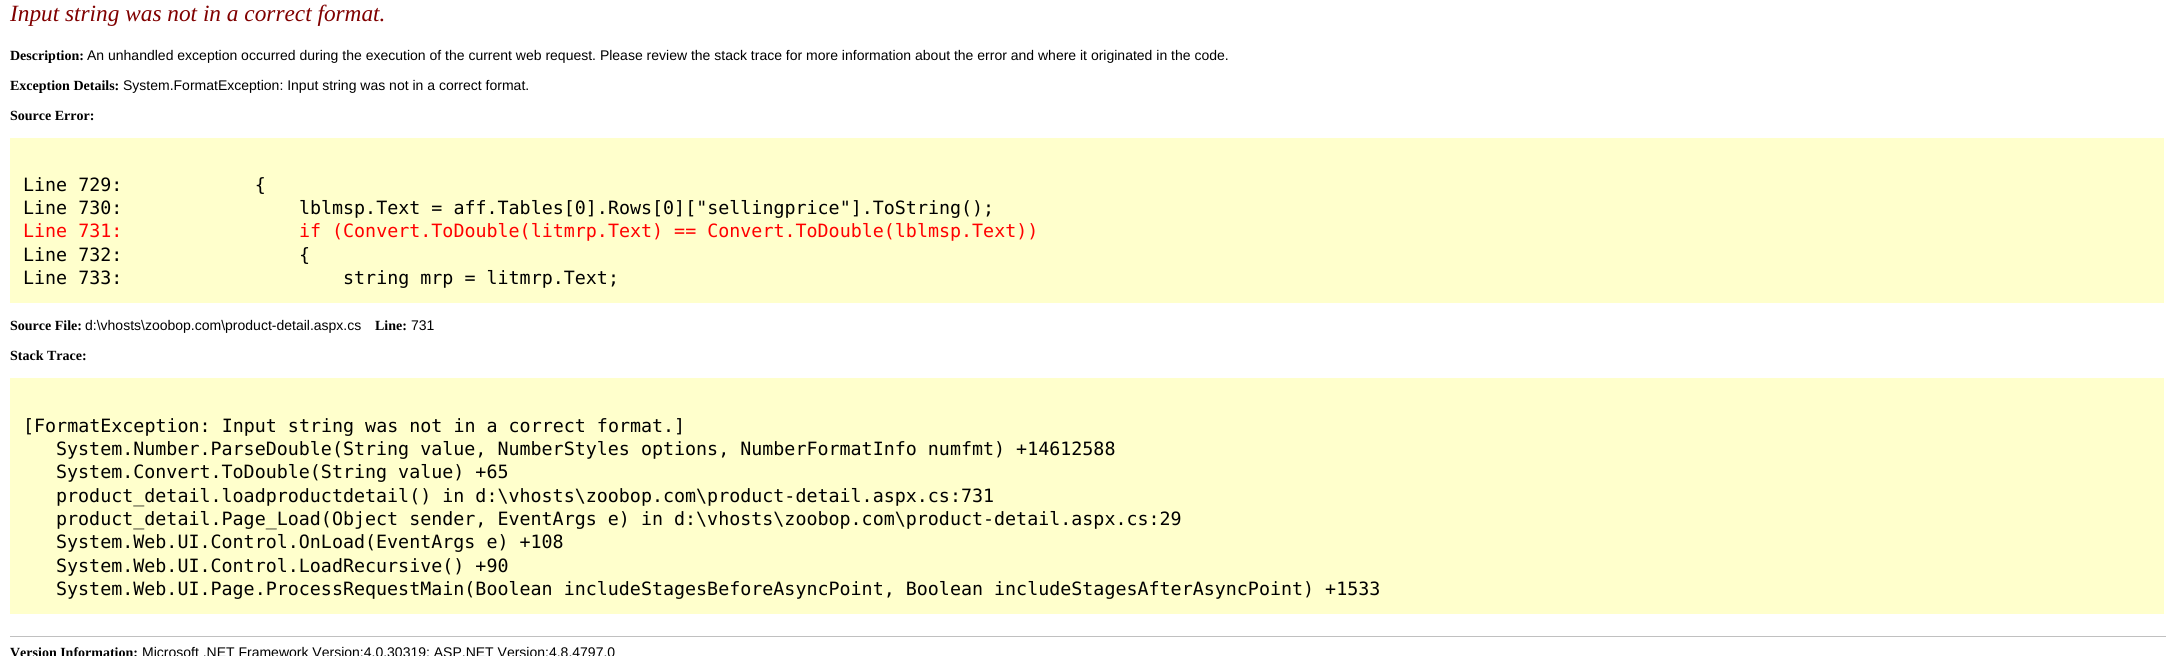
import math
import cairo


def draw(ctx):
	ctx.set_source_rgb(1, 1, 1)
	ctx.paint()
	ctx.select_font_face('Liberation Serif', cairo.FONT_SLANT_ITALIC)
	ctx.set_font_size(23.3)
	ctx.set_source_rgb(0.502, 0, 0)
	ctx.move_to(10, 21)
	ctx.show_text('Input string was not in a correct format.')
	ctx.select_font_face('Liberation Serif', cairo.FONT_SLANT_NORMAL, cairo.FONT_WEIGHT_BOLD)
	ctx.set_font_size(14)
	ctx.set_source_rgb(0, 0, 0)
	ctx.move_to(10, 60)
	ctx.show_text('Description:')
	ctx.select_font_face('Liberation Sans')
	ctx.move_to(87, 60)
	ctx.show_text('An unhandled exception occurred during the execution of the current web request. Please review the stack trace for more information about the error and where it originated in the code.')
	ctx.select_font_face('Liberation Serif', cairo.FONT_SLANT_NORMAL, cairo.FONT_WEIGHT_BOLD)
	ctx.move_to(10, 90)
	ctx.show_text('Exception Details:')
	ctx.select_font_face('Liberation Sans')
	ctx.move_to(123, 90)
	ctx.show_text('System.FormatException: Input string was not in a correct format.')
	ctx.select_font_face('Liberation Serif', cairo.FONT_SLANT_NORMAL, cairo.FONT_WEIGHT_BOLD)
	ctx.move_to(10, 120)
	ctx.show_text('Source Error:')
	ctx.set_source_rgb(1, 1, 0.8)
	ctx.rectangle(10, 138, 2154, 165)
	ctx.fill()
	ctx.select_font_face('DejaVu Sans Mono')
	ctx.set_font_size(18.33)
	ctx.set_source_rgb(0, 0, 0)
	ctx.move_to(23, 191)
	ctx.show_text('Line 729:            {')
	ctx.move_to(23, 214)
	ctx.show_text('Line 730:                lblmsp.Text = aff.Tables[0].Rows[0]["sellingprice"].ToString();')
	ctx.set_source_rgb(1, 0, 0)
	ctx.move_to(23, 237)
	ctx.show_text('Line 731:                if (Convert.ToDouble(litmrp.Text) == Convert.ToDouble(lblmsp.Text))')
	ctx.set_source_rgb(0, 0, 0)
	ctx.move_to(23, 261)
	ctx.show_text('Line 732:                {')
	ctx.move_to(23, 284)
	ctx.show_text('Line 733:                    string mrp = litmrp.Text;')
	ctx.select_font_face('Liberation Serif', cairo.FONT_SLANT_NORMAL, cairo.FONT_WEIGHT_BOLD)
	ctx.set_font_size(14)
	ctx.move_to(10, 330)
	ctx.show_text('Source File:')
	ctx.select_font_face('Liberation Sans')
	ctx.move_to(85, 330)
	ctx.show_text('d:\\vhosts\\zoobop.com\\product-detail.aspx.cs')
	ctx.select_font_face('Liberation Serif', cairo.FONT_SLANT_NORMAL, cairo.FONT_WEIGHT_BOLD)
	ctx.move_to(375, 330)
	ctx.show_text('Line:')
	ctx.select_font_face('Liberation Sans')
	ctx.move_to(411, 330)
	ctx.show_text('731')
	ctx.select_font_face('Liberation Serif', cairo.FONT_SLANT_NORMAL, cairo.FONT_WEIGHT_BOLD)
	ctx.move_to(10, 360)
	ctx.show_text('Stack Trace:')
	ctx.set_source_rgb(1, 1, 0.8)
	ctx.rectangle(10, 378, 2154, 236)
	ctx.fill()
	ctx.select_font_face('DejaVu Sans Mono')
	ctx.set_font_size(18.33)
	ctx.set_source_rgb(0, 0, 0)
	for x, y, s in [
		(23, 432, '[FormatException: Input string was not in a correct format.]'),
		(56, 455, 'System.Number.ParseDouble(String value, NumberStyles options, NumberFormatInfo numfmt) +14612588'),
		(56, 478, 'System.Convert.ToDouble(String value) +65'),
		(56, 502, 'product_detail.loadproductdetail() in d:\\vhosts\\zoobop.com\\product-detail.aspx.cs:731'),
		(56, 525, 'product_detail.Page_Load(Object sender, EventArgs e) in d:\\vhosts\\zoobop.com\\product-detail.aspx.cs:29'),
		(56, 548, 'System.Web.UI.Control.OnLoad(EventArgs e) +108'),
		(56, 572, 'System.Web.UI.Control.LoadRecursive() +90'),
		(56, 595, 'System.Web.UI.Page.ProcessRequestMain(Boolean includeStagesBeforeAsyncPoint, Boolean includeStagesAfterAsyncPoint) +1533'),
	]:
		ctx.move_to(x, y)
		ctx.show_text(s)
	ctx.set_source_rgb(0.753, 0.753, 0.753)
	ctx.rectangle(10, 636, 2156, 1)
	ctx.fill()
	ctx.select_font_face('Liberation Serif', cairo.FONT_SLANT_NORMAL, cairo.FONT_WEIGHT_BOLD)
	ctx.set_font_size(14)
	ctx.set_source_rgb(0, 0, 0)
	ctx.move_to(10, 657)
	ctx.show_text('Version Information:')
	ctx.select_font_face('Liberation Sans')
	ctx.move_to(142, 657)
	ctx.show_text('Microsoft .NET Framework Version:4.0.30319; ASP.NET Version:4.8.4797.0')


surface = cairo.ImageSurface(cairo.FORMAT_RGB24, 2173, 656)
ctx = cairo.Context(surface)
options = cairo.FontOptions()
options.set_hint_metrics(cairo.HINT_METRICS_OFF)
options.set_hint_style(cairo.HINT_STYLE_NONE)
ctx.set_font_options(options)
ctx.set_miter_limit(4)
draw(ctx)
surface.write_to_png('image.png')
